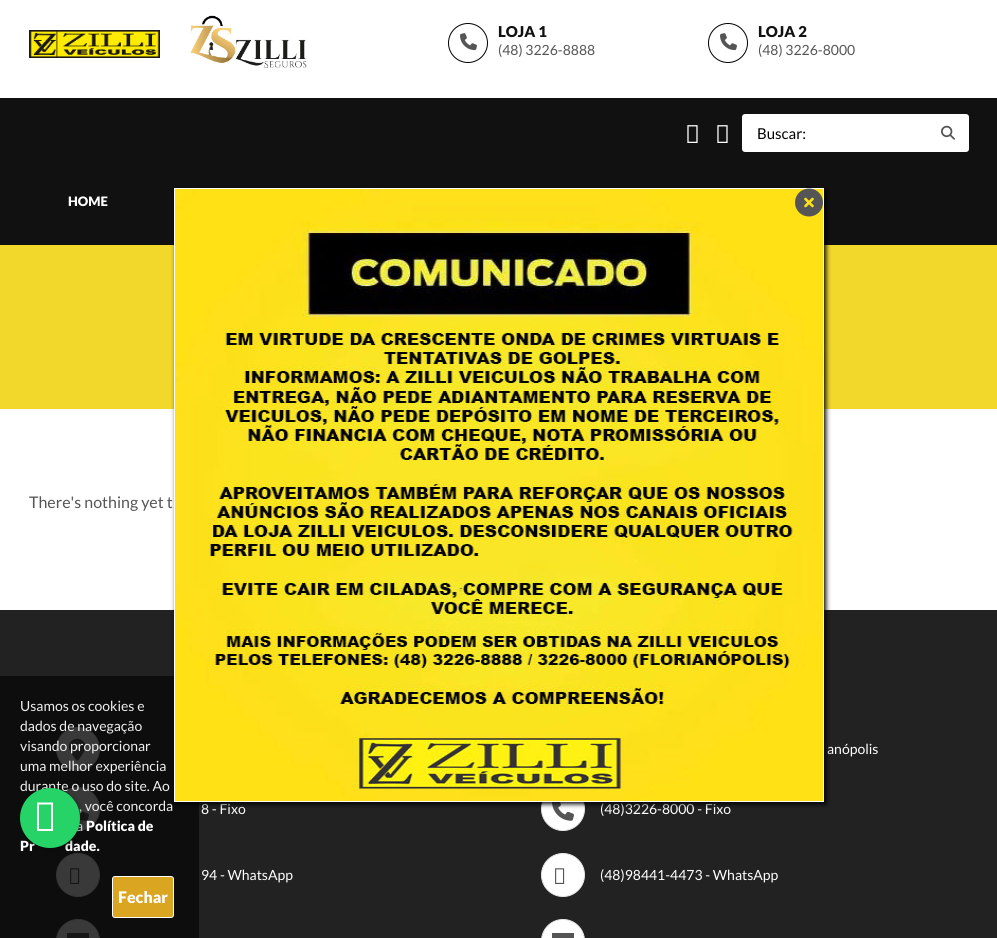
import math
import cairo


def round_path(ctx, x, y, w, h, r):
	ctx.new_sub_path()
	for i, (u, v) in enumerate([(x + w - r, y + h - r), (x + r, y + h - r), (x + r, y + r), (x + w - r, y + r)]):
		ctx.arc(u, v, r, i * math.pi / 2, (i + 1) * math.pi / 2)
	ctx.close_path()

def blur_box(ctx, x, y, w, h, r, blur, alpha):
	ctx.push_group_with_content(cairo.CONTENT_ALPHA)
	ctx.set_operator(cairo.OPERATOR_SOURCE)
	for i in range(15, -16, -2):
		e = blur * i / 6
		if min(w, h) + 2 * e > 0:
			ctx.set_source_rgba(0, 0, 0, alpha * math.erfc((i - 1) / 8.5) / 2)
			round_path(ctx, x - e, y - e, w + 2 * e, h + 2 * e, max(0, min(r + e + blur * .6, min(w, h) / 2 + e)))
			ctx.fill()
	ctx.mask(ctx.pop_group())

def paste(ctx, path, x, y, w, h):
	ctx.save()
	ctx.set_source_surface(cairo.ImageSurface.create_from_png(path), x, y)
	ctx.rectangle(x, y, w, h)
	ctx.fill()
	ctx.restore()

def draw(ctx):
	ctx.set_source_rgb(1, 1, 1)
	ctx.paint()
	paste(ctx, 'media/1.png', 29, 30, 131, 28)
	paste(ctx, 'media/2.png', 190, 15, 117, 53)
	ctx.arc(468, 43, 19.5, 0, 2 * math.pi)
	ctx.set_source_rgb(0, 0, 0)
	ctx.set_line_width(1)
	ctx.stroke()
	paste(ctx, 'media/3.png', 460, 33, 17, 18)
	ctx.select_font_face('Lato Black')
	ctx.set_font_size(15)
	ctx.set_source_rgb(0.067, 0.067, 0.067)
	ctx.move_to(498, 37)
	ctx.show_text('LOJA 1')
	ctx.select_font_face('Lato')
	ctx.set_font_size(14)
	ctx.set_source_rgb(0.333, 0.333, 0.333)
	ctx.move_to(498, 55)
	ctx.show_text('(48) 3226-8888')
	ctx.new_path()
	ctx.arc(728, 43, 19.5, 0, 2 * math.pi)
	ctx.set_source_rgb(0, 0, 0)
	ctx.stroke()
	paste(ctx, 'media/3.png', 720, 33, 17, 18)
	ctx.select_font_face('Lato Black')
	ctx.set_font_size(15)
	ctx.set_source_rgb(0.067, 0.067, 0.067)
	ctx.move_to(758, 37)
	ctx.show_text('LOJA 2')
	ctx.select_font_face('Lato')
	ctx.set_font_size(14)
	ctx.set_source_rgb(0.333, 0.333, 0.333)
	ctx.move_to(758, 55)
	ctx.show_text('(48) 3226-8000')
	ctx.set_source_rgb(0.067, 0.067, 0.067)
	ctx.rectangle(0, 98, 997, 147)
	ctx.fill()
	paste(ctx, 'media/4.png', 687, 125, 11, 18)
	paste(ctx, 'media/4.png', 717, 125, 11, 18)
	ctx.set_source_rgb(1, 1, 1)
	round_path(ctx, 742, 114, 227, 38, 3)
	ctx.fill()
	ctx.set_font_size(15)
	ctx.set_source_rgb(0, 0, 0)
	ctx.move_to(757, 139)
	ctx.show_text('Buscar:')
	paste(ctx, 'media/5.png', 941, 125, 14, 15)
	ctx.select_font_face('Lato Black')
	ctx.set_font_size(13)
	ctx.set_source_rgb(1, 1, 1)
	ctx.move_to(68, 206)
	ctx.show_text('HOME')
	ctx.set_source_rgb(0.953, 0.847, 0.173)
	ctx.rectangle(0, 245, 997, 164)
	ctx.fill()
	ctx.select_font_face('Lato')
	ctx.set_font_size(16)
	ctx.set_source_rgb(0.333, 0.333, 0.333)
	ctx.move_to(29, 508)
	ctx.show_text('There\'s nothing yet t')
	ctx.set_source_rgb(0.133, 0.133, 0.133)
	ctx.rectangle(0, 610, 997, 328)
	ctx.fill()
	ctx.set_source_rgb(1, 1, 1)
	ctx.arc(78, 749, 21.5, 0, 2 * math.pi)
	ctx.fill_preserve()
	ctx.set_source_rgb(0.902, 0.898, 0.898)
	ctx.stroke()
	paste(ctx, 'media/6.png', 69, 738, 17, 23)
	ctx.set_source_rgb(1, 1, 1)
	ctx.arc(78, 809, 21.5, 0, 2 * math.pi)
	ctx.fill_preserve()
	ctx.set_source_rgb(0.902, 0.898, 0.898)
	ctx.stroke()
	paste(ctx, 'media/7.png', 72, 798, 17, 23)
	ctx.set_font_size(14)
	ctx.set_source_rgb(1, 1, 1)
	ctx.move_to(201, 814)
	ctx.show_text('8 - Fixo')
	ctx.new_path()
	ctx.arc(78, 875, 21.5, 0, 2 * math.pi)
	ctx.fill_preserve()
	ctx.set_source_rgb(0.902, 0.898, 0.898)
	ctx.stroke()
	paste(ctx, 'media/8.png', 70, 868, 10, 16)
	ctx.set_source_rgb(1, 1, 1)
	ctx.move_to(201, 880)
	ctx.show_text('94 - WhatsApp')
	round_path(ctx, 56.5, 919.5, 43, 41, 21.5)
	ctx.fill_preserve()
	ctx.set_source_rgb(0.902, 0.898, 0.898)
	ctx.stroke()
	ctx.set_source_rgb(0.333, 0.333, 0.333)
	ctx.rectangle(67, 933, 22, 5)
	ctx.fill()
	ctx.set_source_rgb(1, 1, 1)
	ctx.move_to(827, 754)
	ctx.show_text('anópolis')
	ctx.new_path()
	ctx.arc(563, 809, 21.5, 0, 2 * math.pi)
	ctx.fill_preserve()
	ctx.set_source_rgb(0.902, 0.898, 0.898)
	ctx.stroke()
	paste(ctx, 'media/9.png', 552, 802, 22, 19)
	ctx.set_source_rgb(1, 1, 1)
	ctx.move_to(600, 814)
	ctx.show_text('(48)3226-8000 - Fixo')
	ctx.new_path()
	ctx.arc(563, 875, 21.5, 0, 2 * math.pi)
	ctx.fill_preserve()
	ctx.set_source_rgb(0.902, 0.898, 0.898)
	ctx.stroke()
	paste(ctx, 'media/8.png', 555, 868, 10, 16)
	ctx.set_source_rgb(1, 1, 1)
	ctx.move_to(600, 880)
	ctx.show_text('(48)98441-4473 - WhatsApp')
	round_path(ctx, 541.5, 919.5, 43, 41, 21.5)
	ctx.fill_preserve()
	ctx.set_source_rgb(0.902, 0.898, 0.898)
	ctx.stroke()
	ctx.set_source_rgb(0.333, 0.333, 0.333)
	ctx.rectangle(552, 933, 22, 5)
	ctx.fill()
	ctx.set_source_rgba(0.031, 0.031, 0.031, 0.8)
	ctx.rectangle(0, 676, 199, 262)
	ctx.fill()
	ctx.set_source_rgb(0.937, 0.937, 0.937)
	for x, y, s in [
		(20, 711, 'Usamos os cookies e'),
		(20, 731, 'dados de navegação'),
		(20, 751, 'visando proporcionar'),
		(20, 771, 'uma melhor experiência'),
		(20, 791, 'durante o uso do site. Ao'),
		(79, 811, ', você concorda'),
		(76, 831, 'a'),
	]:
		ctx.move_to(x, y)
		ctx.show_text(s)
	ctx.select_font_face('Lato Black')
	ctx.set_source_rgb(1, 1, 1)
	for x, y, s in [
		(86, 831, 'Política de'),
		(20, 851, 'Pr'),
		(65, 851, 'dade.'),
	]:
		ctx.move_to(x, y)
		ctx.show_text(s)
	ctx.set_source_rgb(0.855, 0.647, 0.125)
	round_path(ctx, 112.5, 876.5, 61, 41, 2.5)
	ctx.fill_preserve()
	ctx.set_source_rgb(1, 1, 1)
	ctx.stroke()
	ctx.set_font_size(16)
	ctx.move_to(118, 903)
	ctx.show_text('Fechar')
	ctx.set_source_rgb(0, 0, 0)
	blur_box(ctx, 176, 190, 650, 614, 0, 2.5, 1)
	ctx.set_source_rgb(1, 1, 1)
	ctx.rectangle(174, 188, 650, 614)
	ctx.fill()
	paste(ctx, 'media/11.png', 175, 189, 648, 612)
	paste(ctx, 'media/10.png', 795, 188, 28, 29)
	ctx.set_source_rgb(0, 0, 0)
	blur_box(ctx, 22, 790, 60, 60, 30, 2.5, 0.34)
	ctx.set_source_rgb(0.145, 0.827, 0.4)
	ctx.arc(50, 818, 30, 0, 2 * math.pi)
	ctx.fill()
	ctx.set_source_rgb(1, 1, 1)
	ctx.new_path()
	ctx.move_to(37, 831)
	ctx.line_to(37, 802.5)
	ctx.line_to(53, 802.5)
	ctx.line_to(53, 831)
	ctx.close_path()
	ctx.move_to(39, 829)
	ctx.line_to(51, 829)
	ctx.line_to(51, 804.5)
	ctx.line_to(39, 804.5)
	ctx.close_path()
	ctx.fill()


surface = cairo.ImageSurface(cairo.FORMAT_RGB24, 997, 938)
ctx = cairo.Context(surface)
options = cairo.FontOptions()
options.set_hint_metrics(cairo.HINT_METRICS_OFF)
options.set_hint_style(cairo.HINT_STYLE_NONE)
ctx.set_font_options(options)
ctx.set_miter_limit(4)
draw(ctx)
surface.write_to_png('image.png')
